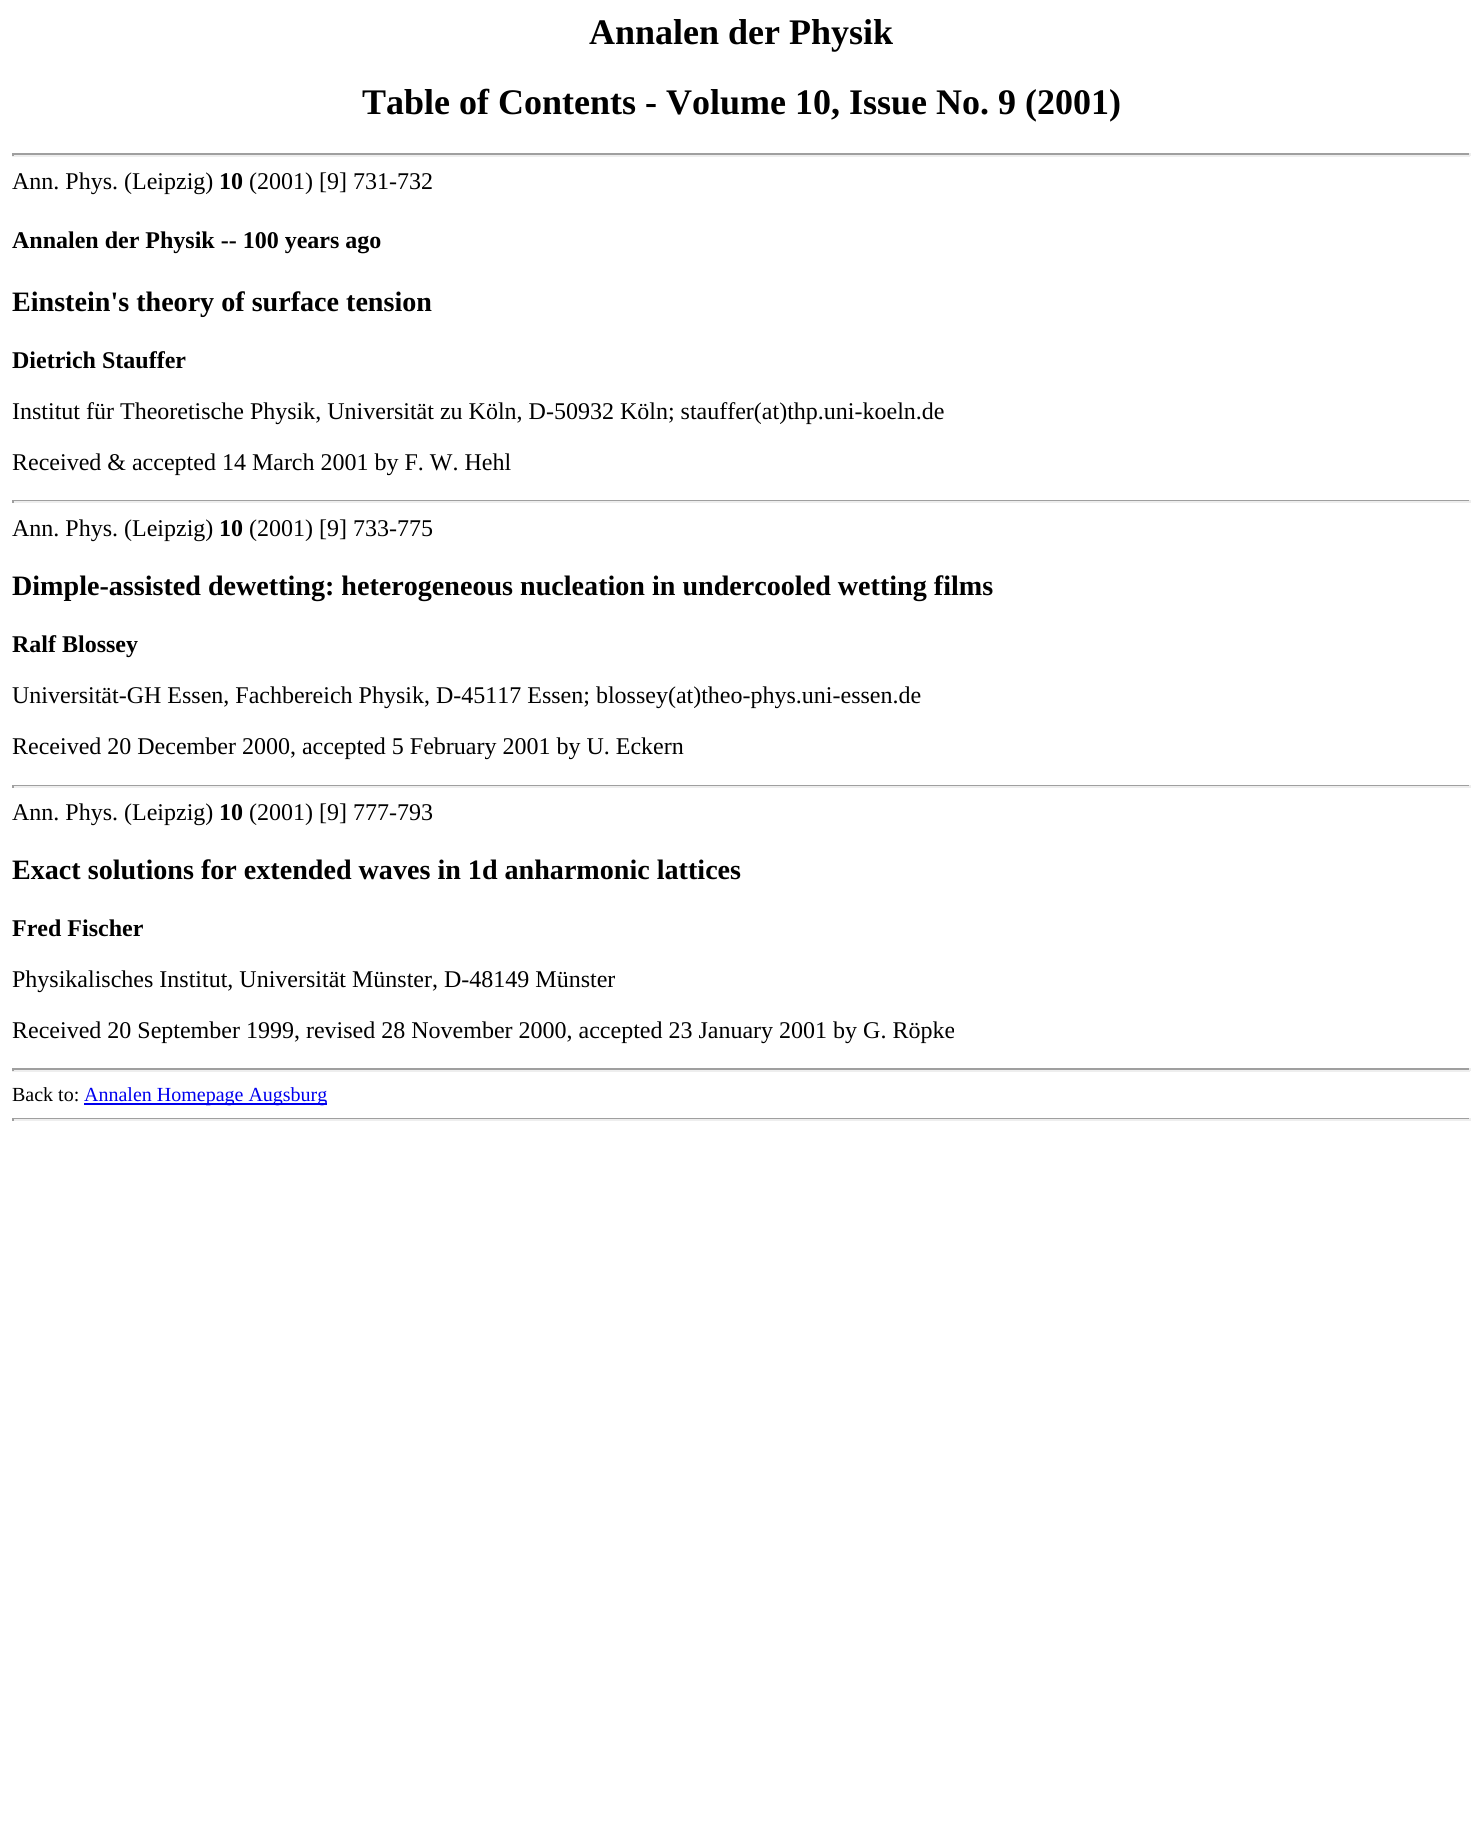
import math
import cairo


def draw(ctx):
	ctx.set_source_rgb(1, 1, 1)
	ctx.paint()
	ctx.select_font_face('Liberation Serif', cairo.FONT_SLANT_NORMAL, cairo.FONT_WEIGHT_BOLD)
	ctx.set_font_size(36)
	ctx.set_source_rgb(0, 0, 0)
	ctx.move_to(589, 44)
	ctx.show_text('Annalen der Physik')
	ctx.move_to(362, 114)
	ctx.show_text('Table of Contents - Volume 10, Issue No. 9 (2001)')
	ctx.set_source_rgb(0.624, 0.624, 0.624)
	ctx.rectangle(12, 153, 1458, 2)
	ctx.fill()
	ctx.set_source_rgb(0.933, 0.933, 0.933)
	ctx.rectangle(1469, 153, 2, 3)
	ctx.rectangle(12, 155, 1458, 2)
	ctx.fill()
	ctx.set_source_rgb(0.624, 0.624, 0.624)
	ctx.rectangle(12, 153, 2, 3)
	ctx.fill()
	ctx.select_font_face('Liberation Serif')
	ctx.set_font_size(24)
	ctx.set_source_rgb(0, 0, 0)
	ctx.move_to(12, 189)
	ctx.show_text('Ann. Phys. (Leipzig)')
	ctx.select_font_face('Liberation Serif', cairo.FONT_SLANT_NORMAL, cairo.FONT_WEIGHT_BOLD)
	ctx.move_to(219, 189)
	ctx.show_text('10')
	ctx.select_font_face('Liberation Serif')
	ctx.move_to(249, 189)
	ctx.show_text('(2001) [9] 731-732')
	ctx.select_font_face('Liberation Serif', cairo.FONT_SLANT_NORMAL, cairo.FONT_WEIGHT_BOLD)
	ctx.move_to(12, 248)
	ctx.show_text('Annalen der Physik -- 100 years ago')
	ctx.set_font_size(28.1)
	ctx.move_to(12, 311)
	ctx.show_text('Einstein\'s theory of surface tension')
	ctx.set_font_size(24)
	ctx.move_to(12, 368)
	ctx.show_text('Dietrich Stauffer')
	ctx.select_font_face('Liberation Serif')
	ctx.move_to(12, 419)
	ctx.show_text('Institut für Theoretische Physik, Universität zu Köln, D-50932 Köln; stauffer(at)thp.uni-koeln.de')
	ctx.move_to(12, 470)
	ctx.show_text('Received & accepted 14 March 2001 by F. W. Hehl')
	ctx.set_source_rgb(0.624, 0.624, 0.624)
	ctx.rectangle(12, 500, 1458, 1)
	ctx.fill()
	ctx.set_source_rgb(0.933, 0.933, 0.933)
	ctx.rectangle(1469, 500, 2, 3)
	ctx.rectangle(12, 501, 1458, 2)
	ctx.fill()
	ctx.set_source_rgb(0.624, 0.624, 0.624)
	ctx.rectangle(12, 500, 2, 3)
	ctx.fill()
	ctx.set_source_rgb(0, 0, 0)
	ctx.move_to(12, 536)
	ctx.show_text('Ann. Phys. (Leipzig)')
	ctx.select_font_face('Liberation Serif', cairo.FONT_SLANT_NORMAL, cairo.FONT_WEIGHT_BOLD)
	ctx.move_to(219, 536)
	ctx.show_text('10')
	ctx.select_font_face('Liberation Serif')
	ctx.move_to(249, 536)
	ctx.show_text('(2001) [9] 733-775')
	ctx.select_font_face('Liberation Serif', cairo.FONT_SLANT_NORMAL, cairo.FONT_WEIGHT_BOLD)
	ctx.set_font_size(28.1)
	ctx.move_to(12, 595)
	ctx.show_text('Dimple-assisted dewetting: heterogeneous nucleation in undercooled wetting films')
	ctx.set_font_size(24)
	ctx.move_to(12, 652)
	ctx.show_text('Ralf Blossey')
	ctx.select_font_face('Liberation Serif')
	ctx.move_to(12, 703)
	ctx.show_text('Universität-GH Essen, Fachbereich Physik, D-45117 Essen; blossey(at)theo-phys.uni-essen.de')
	ctx.move_to(12, 754)
	ctx.show_text('Received 20 December 2000, accepted 5 February 2001 by U. Eckern')
	ctx.set_source_rgb(0.624, 0.624, 0.624)
	ctx.rectangle(12, 785, 1458, 1)
	ctx.fill()
	ctx.set_source_rgb(0.933, 0.933, 0.933)
	ctx.rectangle(1469, 785, 2, 3)
	ctx.rectangle(12, 786, 1458, 2)
	ctx.fill()
	ctx.set_source_rgb(0.624, 0.624, 0.624)
	ctx.rectangle(12, 785, 2, 3)
	ctx.fill()
	ctx.set_source_rgb(0, 0, 0)
	ctx.move_to(12, 820)
	ctx.show_text('Ann. Phys. (Leipzig)')
	ctx.select_font_face('Liberation Serif', cairo.FONT_SLANT_NORMAL, cairo.FONT_WEIGHT_BOLD)
	ctx.move_to(219, 820)
	ctx.show_text('10')
	ctx.select_font_face('Liberation Serif')
	ctx.move_to(249, 820)
	ctx.show_text('(2001) [9] 777-793')
	ctx.select_font_face('Liberation Serif', cairo.FONT_SLANT_NORMAL, cairo.FONT_WEIGHT_BOLD)
	ctx.set_font_size(28.1)
	ctx.move_to(12, 879)
	ctx.show_text('Exact solutions for extended waves in 1d anharmonic lattices')
	ctx.set_font_size(24)
	ctx.move_to(12, 936)
	ctx.show_text('Fred Fischer')
	ctx.select_font_face('Liberation Serif')
	ctx.move_to(12, 987)
	ctx.show_text('Physikalisches Institut, Universität Münster, D-48149 Münster')
	ctx.move_to(12, 1038)
	ctx.show_text('Received 20 September 1999, revised 28 November 2000, accepted 23 January 2001 by G. Röpke')
	ctx.set_source_rgb(0.624, 0.624, 0.624)
	ctx.rectangle(12, 1068, 1458, 2)
	ctx.fill()
	ctx.set_source_rgb(0.933, 0.933, 0.933)
	ctx.rectangle(1469, 1068, 2, 3)
	ctx.rectangle(12, 1070, 1458, 2)
	ctx.fill()
	ctx.set_source_rgb(0.624, 0.624, 0.624)
	ctx.rectangle(12, 1068, 2, 3)
	ctx.fill()
	ctx.set_font_size(20)
	ctx.set_source_rgb(0, 0, 0)
	ctx.move_to(12, 1101)
	ctx.show_text('Back to:')
	ctx.set_source_rgb(0, 0, 0.933)
	ctx.rectangle(84, 1103, 243, 2)
	ctx.fill()
	ctx.move_to(84, 1101)
	ctx.show_text('Annalen Homepage Augsburg')
	ctx.set_source_rgb(0.624, 0.624, 0.624)
	ctx.rectangle(12, 1118, 1458, 1)
	ctx.fill()
	ctx.set_source_rgb(0.933, 0.933, 0.933)
	ctx.rectangle(1469, 1118, 2, 3)
	ctx.rectangle(12, 1119, 1458, 2)
	ctx.fill()
	ctx.set_source_rgb(0.624, 0.624, 0.624)
	ctx.rectangle(12, 1118, 2, 3)
	ctx.fill()


surface = cairo.ImageSurface(cairo.FORMAT_RGB24, 1481, 1836)
ctx = cairo.Context(surface)
options = cairo.FontOptions()
options.set_hint_metrics(cairo.HINT_METRICS_OFF)
options.set_hint_style(cairo.HINT_STYLE_NONE)
ctx.set_font_options(options)
ctx.set_miter_limit(4)
draw(ctx)
surface.write_to_png('image.png')
